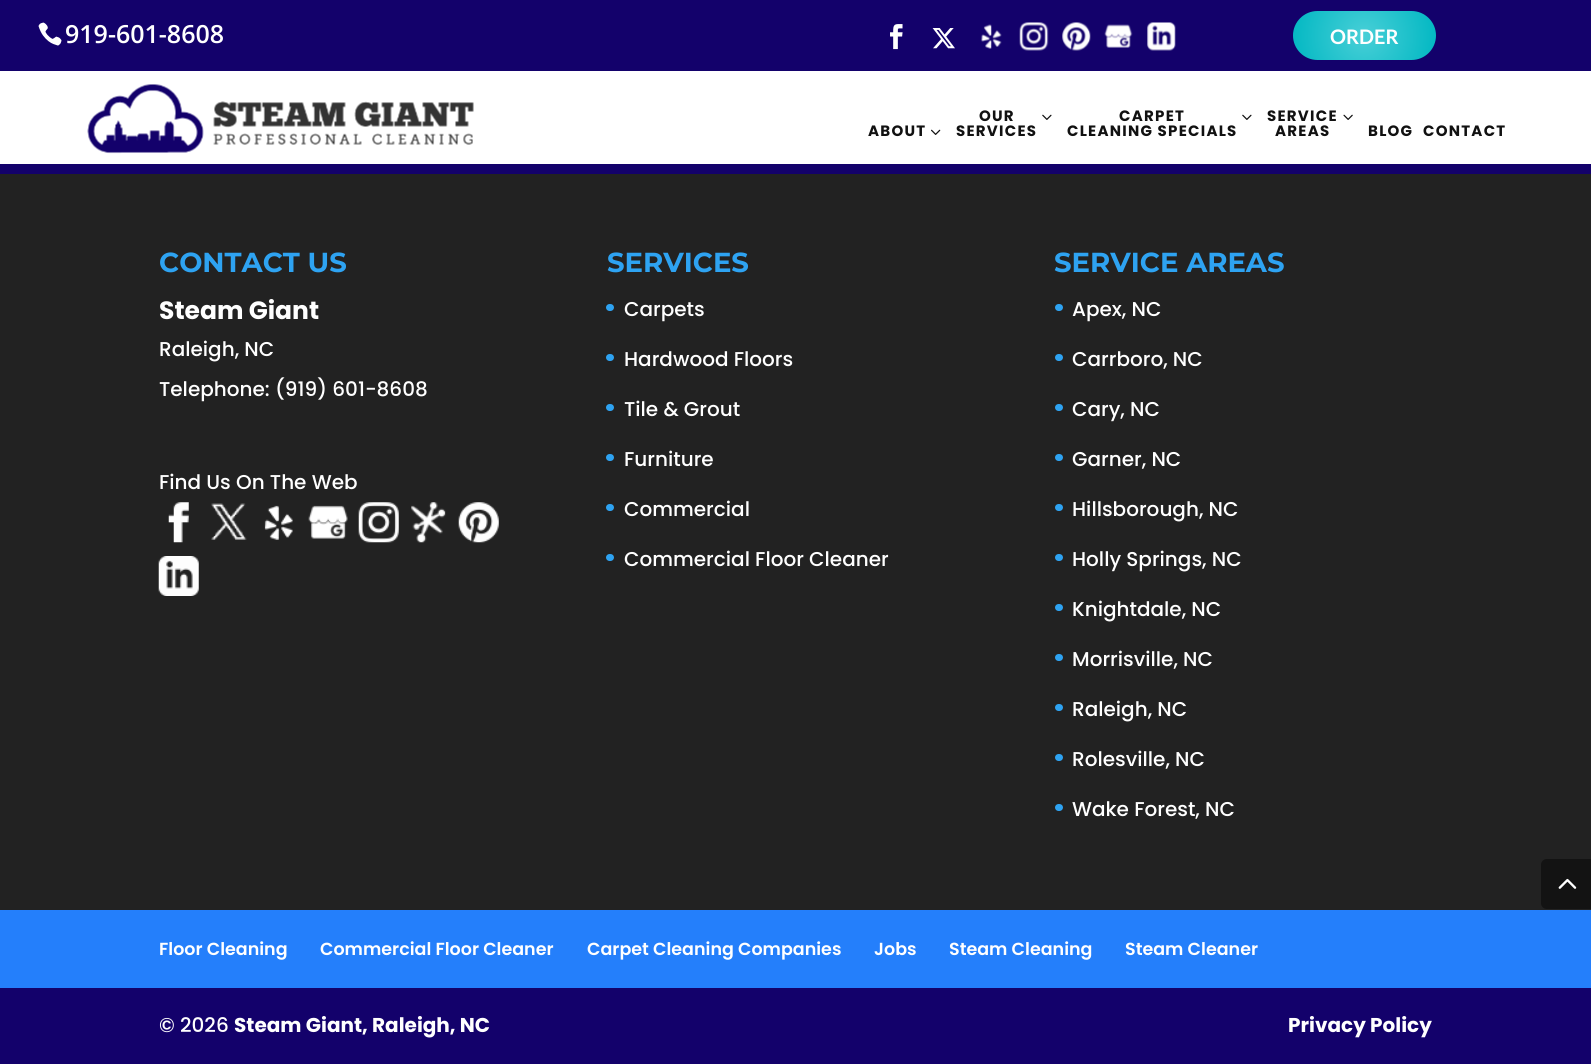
import math
import cairo


def write_spaced(ctx, x, y, s, letter, word):
	ctx.move_to(x, y)
	for ch in s:
		ctx.show_text(ch)
		ctx.rel_move_to(letter + word * (ch == ' '), 0)

def round_path(ctx, x, y, w, h, r):
	ctx.new_sub_path()
	for i, (u, v) in enumerate([(x + w - r, y + h - r), (x + r, y + h - r), (x + r, y + r), (x + w - r, y + r)]):
		ctx.arc(u, v, r, i * math.pi / 2, (i + 1) * math.pi / 2)
	ctx.close_path()

def paste(ctx, path, x, y, w, h):
	ctx.save()
	ctx.set_source_surface(cairo.ImageSurface.create_from_png(path), x, y)
	ctx.rectangle(x, y, w, h)
	ctx.fill()
	ctx.restore()

def draw(ctx):
	ctx.set_source_rgb(0.133, 0.133, 0.133)
	ctx.paint()
	ctx.set_source_rgb(0.075, 0.004, 0.42)
	ctx.rectangle(0, 0, 1591, 71)
	ctx.fill()
	paste(ctx, 'media/1.png', 38, 22, 24, 24)
	ctx.select_font_face('Open Sans SemiBold')
	ctx.set_font_size(25)
	ctx.set_source_rgb(1, 1, 1)
	ctx.move_to(65, 43)
	ctx.show_text('919-601-8608')
	paste(ctx, 'media/2.png', 890, 24, 13, 26)
	paste(ctx, 'media/3.png', 932, 28, 23, 21)
	paste(ctx, 'media/4.png', 981, 24, 21, 25)
	paste(ctx, 'media/5.png', 1019, 22, 30, 29)
	paste(ctx, 'media/6.png', 1062, 22, 29, 29)
	paste(ctx, 'media/7.png', 1104, 24, 29, 24)
	paste(ctx, 'media/8.png', 1147, 22, 29, 29)
	gradient = cairo.RadialGradient(1364, 36, 0, 1364, 36, 76)
	gradient.add_color_stop_rgba(0, 0.282, 0.812, 0.843, 1)
	gradient.add_color_stop_rgba(1, 0, 0.718, 0.761, 1)
	ctx.set_source(gradient)
	round_path(ctx, 1293, 11, 143, 49, 24.5)
	ctx.fill()
	ctx.select_font_face('Lato', cairo.FONT_SLANT_NORMAL, cairo.FONT_WEIGHT_BOLD)
	ctx.set_font_size(20)
	ctx.set_source_rgb(1, 1, 1)
	ctx.move_to(1330, 44)
	ctx.show_text('ORDER')
	ctx.rectangle(0, 71, 1591, 93)
	ctx.fill()
	paste(ctx, 'media/9.png', 87, 84, 387, 70)
	ctx.select_font_face('Poppins', cairo.FONT_SLANT_NORMAL, cairo.FONT_WEIGHT_BOLD)
	ctx.set_font_size(15)
	ctx.set_source_rgb(0.067, 0.067, 0.067)
	write_spaced(ctx, 868, 136, 'ABOUT', 1.25, 0)
	paste(ctx, 'media/10.png', 931, 129, 10, 6)
	write_spaced(ctx, 979, 121, 'OUR', 1.25, 0)
	paste(ctx, 'media/11.png', 1042, 114, 10, 6)
	write_spaced(ctx, 956, 136, 'SERVICES', 1.25, 0)
	write_spaced(ctx, 1119, 121, 'CARPET', 1.25, 0)
	paste(ctx, 'media/11.png', 1242, 114, 10, 6)
	write_spaced(ctx, 1067, 136, 'CLEANING SPECIALS', 1.25, 0)
	write_spaced(ctx, 1267, 121, 'SERVICE', 1.25, 0)
	paste(ctx, 'media/12.png', 1343, 114, 10, 6)
	for x, y, s in [
		(1275, 136, 'AREAS'),
		(1368, 136, 'BLOG'),
		(1423, 136, 'CONTACT'),
	]:
		write_spaced(ctx, x, y, s, 1.25, 0)
	ctx.set_source_rgb(0.075, 0.004, 0.42)
	ctx.rectangle(0, 164, 1591, 10)
	ctx.fill()
	ctx.select_font_face('Montserrat', cairo.FONT_SLANT_NORMAL, cairo.FONT_WEIGHT_BOLD)
	ctx.set_font_size(27.5)
	ctx.set_source_rgb(0.18, 0.639, 0.949)
	ctx.move_to(159, 272)
	ctx.show_text('CONTACT US')
	ctx.select_font_face('Poppins', cairo.FONT_SLANT_NORMAL, cairo.FONT_WEIGHT_BOLD)
	ctx.set_font_size(25)
	ctx.set_source_rgb(1, 1, 1)
	ctx.move_to(159, 319)
	ctx.show_text('Steam Giant')
	ctx.select_font_face('Poppins Medium')
	ctx.set_font_size(20)
	for x, y, s in [
		(159, 356, 'Raleigh, NC'),
		(159, 396, 'Telephone: (919) 601-8608'),
		(159, 489, 'Find Us On The Web'),
	]:
		ctx.move_to(x, y)
		ctx.show_text(s)
	paste(ctx, 'media/13.png', 168, 502, 21, 41)
	paste(ctx, 'media/14.png', 211, 503, 36, 37)
	paste(ctx, 'media/15.png', 264, 505, 29, 35)
	paste(ctx, 'media/16.png', 308, 505, 40, 34)
	paste(ctx, 'media/17.png', 358, 502, 41, 41)
	paste(ctx, 'media/18.png', 411, 502, 35, 41)
	paste(ctx, 'media/19.png', 458, 502, 41, 41)
	paste(ctx, 'media/20.png', 158, 556, 41, 40)
	ctx.select_font_face('Montserrat', cairo.FONT_SLANT_NORMAL, cairo.FONT_WEIGHT_BOLD)
	ctx.set_font_size(27.5)
	ctx.set_source_rgb(0.18, 0.639, 0.949)
	ctx.move_to(607, 272)
	ctx.show_text('SERVICES')
	round_path(ctx, 606, 304, 8, 7, 3.5)
	ctx.fill()
	ctx.select_font_face('Poppins Medium')
	ctx.set_font_size(20)
	ctx.set_source_rgb(1, 1, 1)
	ctx.move_to(624, 316)
	ctx.show_text('Carpets')
	ctx.set_source_rgb(0.18, 0.639, 0.949)
	round_path(ctx, 606, 354, 8, 7, 3.5)
	ctx.fill()
	ctx.set_source_rgb(1, 1, 1)
	ctx.move_to(624, 366)
	ctx.show_text('Hardwood Floors')
	ctx.set_source_rgb(0.18, 0.639, 0.949)
	round_path(ctx, 606, 404, 8, 7, 3.5)
	ctx.fill()
	ctx.set_source_rgb(1, 1, 1)
	ctx.move_to(624, 416)
	ctx.show_text('Tile & Grout')
	ctx.set_source_rgb(0.18, 0.639, 0.949)
	round_path(ctx, 606, 454, 8, 7, 3.5)
	ctx.fill()
	ctx.set_source_rgb(1, 1, 1)
	ctx.move_to(624, 466)
	ctx.show_text('Furniture')
	ctx.set_source_rgb(0.18, 0.639, 0.949)
	round_path(ctx, 606, 504, 8, 7, 3.5)
	ctx.fill()
	ctx.set_source_rgb(1, 1, 1)
	ctx.move_to(624, 516)
	ctx.show_text('Commercial')
	ctx.set_source_rgb(0.18, 0.639, 0.949)
	round_path(ctx, 606, 554, 8, 7, 3.5)
	ctx.fill()
	ctx.set_source_rgb(1, 1, 1)
	ctx.move_to(624, 566)
	ctx.show_text('Commercial Floor Cleaner')
	ctx.select_font_face('Montserrat', cairo.FONT_SLANT_NORMAL, cairo.FONT_WEIGHT_BOLD)
	ctx.set_font_size(27.5)
	ctx.set_source_rgb(0.18, 0.639, 0.949)
	ctx.move_to(1054, 272)
	ctx.show_text('SERVICE AREAS')
	round_path(ctx, 1055, 304, 8, 7, 3.5)
	ctx.fill()
	ctx.select_font_face('Poppins Medium')
	ctx.set_font_size(20)
	ctx.set_source_rgb(1, 1, 1)
	ctx.move_to(1072, 316)
	ctx.show_text('Apex, NC')
	ctx.set_source_rgb(0.18, 0.639, 0.949)
	round_path(ctx, 1055, 354, 8, 7, 3.5)
	ctx.fill()
	ctx.set_source_rgb(1, 1, 1)
	ctx.move_to(1072, 366)
	ctx.show_text('Carrboro, NC')
	ctx.set_source_rgb(0.18, 0.639, 0.949)
	round_path(ctx, 1055, 404, 8, 7, 3.5)
	ctx.fill()
	ctx.set_source_rgb(1, 1, 1)
	ctx.move_to(1072, 416)
	ctx.show_text('Cary, NC')
	ctx.set_source_rgb(0.18, 0.639, 0.949)
	round_path(ctx, 1055, 454, 8, 7, 3.5)
	ctx.fill()
	ctx.set_source_rgb(1, 1, 1)
	ctx.move_to(1072, 466)
	ctx.show_text('Garner, NC')
	ctx.set_source_rgb(0.18, 0.639, 0.949)
	round_path(ctx, 1055, 504, 8, 7, 3.5)
	ctx.fill()
	ctx.set_source_rgb(1, 1, 1)
	ctx.move_to(1072, 516)
	ctx.show_text('Hillsborough, NC')
	ctx.set_source_rgb(0.18, 0.639, 0.949)
	round_path(ctx, 1055, 554, 8, 7, 3.5)
	ctx.fill()
	ctx.set_source_rgb(1, 1, 1)
	ctx.move_to(1072, 566)
	ctx.show_text('Holly Springs, NC')
	ctx.set_source_rgb(0.18, 0.639, 0.949)
	round_path(ctx, 1055, 604, 8, 7, 3.5)
	ctx.fill()
	ctx.set_source_rgb(1, 1, 1)
	ctx.move_to(1072, 616)
	ctx.show_text('Knightdale, NC')
	ctx.set_source_rgb(0.18, 0.639, 0.949)
	round_path(ctx, 1055, 654, 8, 7, 3.5)
	ctx.fill()
	ctx.set_source_rgb(1, 1, 1)
	ctx.move_to(1072, 666)
	ctx.show_text('Morrisville, NC')
	ctx.set_source_rgb(0.18, 0.639, 0.949)
	round_path(ctx, 1055, 704, 8, 7, 3.5)
	ctx.fill()
	ctx.set_source_rgb(1, 1, 1)
	ctx.move_to(1072, 716)
	ctx.show_text('Raleigh, NC')
	ctx.set_source_rgb(0.18, 0.639, 0.949)
	round_path(ctx, 1055, 754, 8, 7, 3.5)
	ctx.fill()
	ctx.set_source_rgb(1, 1, 1)
	ctx.move_to(1072, 766)
	ctx.show_text('Rolesville, NC')
	ctx.set_source_rgb(0.18, 0.639, 0.949)
	round_path(ctx, 1055, 804, 8, 7, 3.5)
	ctx.fill()
	ctx.set_source_rgb(1, 1, 1)
	ctx.move_to(1072, 816)
	ctx.show_text('Wake Forest, NC')
	ctx.set_source_rgb(0.141, 0.498, 0.984)
	ctx.rectangle(0, 910, 1591, 78)
	ctx.fill()
	ctx.select_font_face('Poppins SemiBold')
	ctx.set_font_size(17.5)
	ctx.set_source_rgb(1, 1, 1)
	for x, y, s in [
		(159, 955, 'Floor Cleaning'),
		(320, 955, 'Commercial Floor Cleaner'),
		(587, 955, 'Carpet Cleaning Companies'),
		(874, 955, 'Jobs'),
		(949, 955, 'Steam Cleaning'),
		(1125, 955, 'Steam Cleaner'),
	]:
		ctx.move_to(x, y)
		ctx.show_text(s)
	ctx.set_source_rgb(0.075, 0.004, 0.42)
	ctx.rectangle(0, 988, 1591, 76)
	ctx.fill()
	ctx.select_font_face('Poppins Medium')
	ctx.set_font_size(20)
	ctx.set_source_rgb(1, 1, 1)
	ctx.move_to(159, 1032)
	ctx.show_text('© 2026')
	ctx.select_font_face('Poppins', cairo.FONT_SLANT_NORMAL, cairo.FONT_WEIGHT_BOLD)
	ctx.move_to(234, 1032)
	ctx.show_text('Steam Giant, Raleigh, NC')
	ctx.move_to(1288, 1032)
	ctx.show_text('Privacy Policy')
	ctx.set_source_rgb(0.078, 0.078, 0.078)
	ctx.new_path()
	ctx.move_to(1547, 859)
	ctx.line_to(1591, 859)
	ctx.line_to(1591, 909)
	ctx.line_to(1547, 909)
	ctx.curve_to(1543.5, 909, 1541, 906.5, 1541, 903)
	ctx.line_to(1541, 865)
	ctx.curve_to(1541, 861.5, 1543.5, 859, 1547, 859)
	ctx.close_path()
	ctx.fill()
	paste(ctx, 'media/21.png', 1558, 878, 19, 11)


surface = cairo.ImageSurface(cairo.FORMAT_RGB24, 1591, 1064)
ctx = cairo.Context(surface)
options = cairo.FontOptions()
options.set_hint_metrics(cairo.HINT_METRICS_OFF)
options.set_hint_style(cairo.HINT_STYLE_NONE)
ctx.set_font_options(options)
ctx.set_miter_limit(4)
draw(ctx)
surface.write_to_png('image.png')
